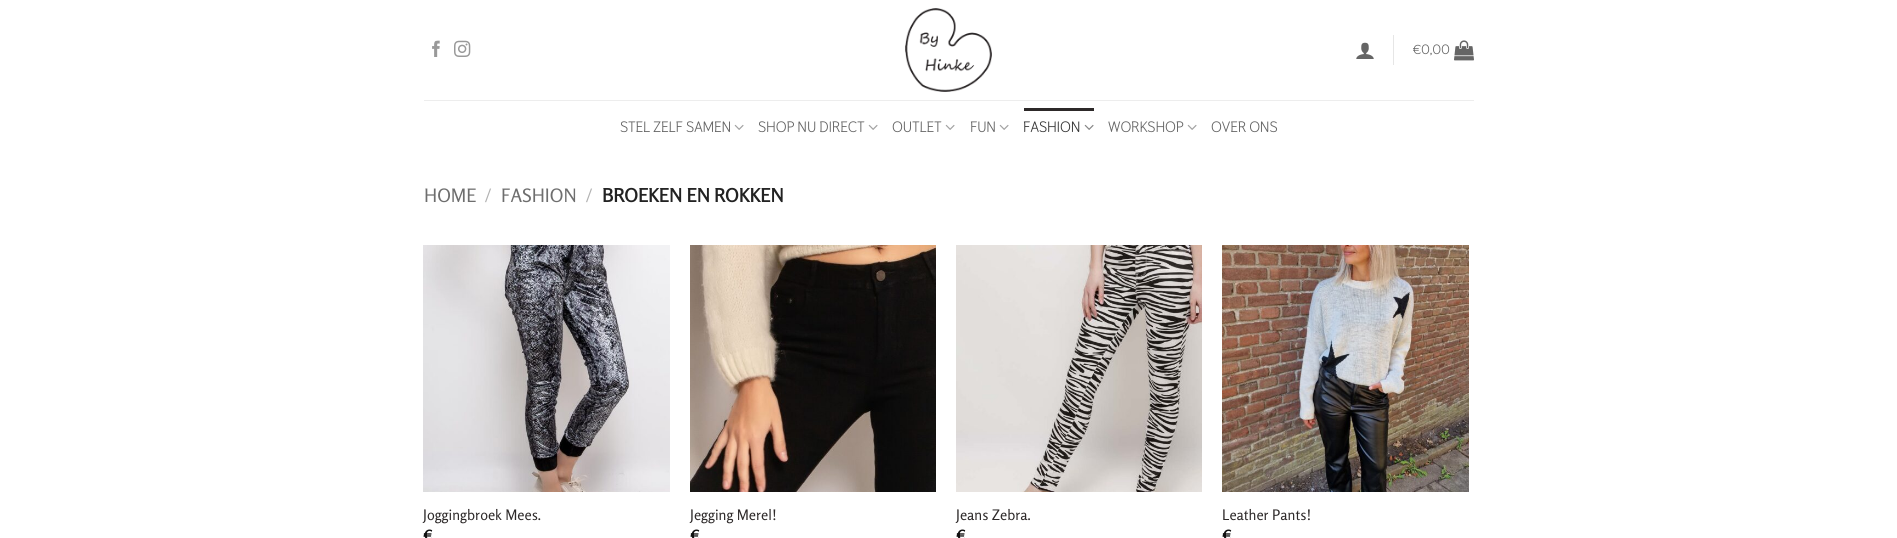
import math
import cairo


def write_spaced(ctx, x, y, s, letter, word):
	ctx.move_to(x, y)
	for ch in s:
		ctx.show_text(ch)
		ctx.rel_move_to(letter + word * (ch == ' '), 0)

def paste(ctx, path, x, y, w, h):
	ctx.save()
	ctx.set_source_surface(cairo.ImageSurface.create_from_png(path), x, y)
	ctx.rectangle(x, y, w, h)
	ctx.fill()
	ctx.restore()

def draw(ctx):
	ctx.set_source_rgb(1, 1, 1)
	ctx.paint()
	paste(ctx, 'media/1.png', 432, 40, 8, 17)
	paste(ctx, 'media/2.png', 454, 40, 17, 17)
	paste(ctx, 'media/3.png', 905, 8, 87, 84)
	paste(ctx, 'media/4.png', 1356, 42, 18, 17)
	ctx.set_source_rgb(0.902, 0.902, 0.902)
	ctx.rectangle(1393, 35, 1, 30)
	ctx.fill()
	ctx.select_font_face('Thasadith', cairo.FONT_SLANT_NORMAL, cairo.FONT_WEIGHT_BOLD)
	ctx.set_font_size(13)
	ctx.set_source_rgb(0.396, 0.396, 0.396)
	ctx.move_to(1413, 54)
	ctx.show_text('€0,00')
	paste(ctx, 'media/5.png', 1454, 40, 20, 21)
	ctx.set_source_rgb(0.929, 0.929, 0.929)
	ctx.rectangle(424, 100, 1050, 1)
	ctx.fill()
	ctx.set_font_size(14.5)
	ctx.set_source_rgb(0.396, 0.396, 0.396)
	write_spaced(ctx, 620, 132, 'STEL ZELF SAMEN', 0.25, 0)
	paste(ctx, 'media/6.png', 734, 124, 10, 6)
	write_spaced(ctx, 758, 132, 'SHOP NU DIRECT', 0.25, 0)
	paste(ctx, 'media/6.png', 868, 124, 10, 6)
	write_spaced(ctx, 892, 132, 'OUTLET', 0.25, 0)
	paste(ctx, 'media/6.png', 945, 124, 10, 6)
	write_spaced(ctx, 970, 132, 'FUN', 0.25, 0)
	paste(ctx, 'media/6.png', 999, 124, 10, 6)
	ctx.set_source_rgb(0.176, 0.161, 0.161)
	ctx.rectangle(1024, 108, 70, 3)
	ctx.fill()
	ctx.set_source_rgb(0.212, 0.212, 0.212)
	write_spaced(ctx, 1023, 132, 'FASHION', 0.25, 0)
	paste(ctx, 'media/7.png', 1084, 124, 10, 6)
	ctx.set_source_rgb(0.396, 0.396, 0.396)
	write_spaced(ctx, 1108, 132, 'WORKSHOP', 0.25, 0)
	paste(ctx, 'media/6.png', 1187, 124, 10, 6)
	write_spaced(ctx, 1211, 132, 'OVER ONS', 0.25, 0)
	ctx.select_font_face('Rosario')
	ctx.set_font_size(18.5)
	ctx.set_source_rgb(0.431, 0.431, 0.431)
	ctx.move_to(424, 202)
	ctx.show_text('HOME')
	ctx.set_source_rgb(0.698, 0.698, 0.698)
	ctx.move_to(485, 202)
	ctx.show_text('/')
	ctx.set_source_rgb(0.431, 0.431, 0.431)
	ctx.move_to(501, 202)
	ctx.show_text('FASHION')
	ctx.set_source_rgb(0.698, 0.698, 0.698)
	ctx.move_to(586, 202)
	ctx.show_text('/')
	ctx.select_font_face('Rosario', cairo.FONT_SLANT_NORMAL, cairo.FONT_WEIGHT_BOLD)
	ctx.set_source_rgb(0.133, 0.133, 0.133)
	ctx.move_to(602, 202)
	ctx.show_text('BROEKEN EN ROKKEN')
	paste(ctx, 'media/8.png', 423, 245, 247, 247)
	ctx.select_font_face('Rosario')
	ctx.set_font_size(14.5)
	ctx.set_source_rgb(0.176, 0.161, 0.161)
	ctx.move_to(423, 520)
	ctx.show_text('Joggingbroek Mees.')
	ctx.select_font_face('Rosario', cairo.FONT_SLANT_NORMAL, cairo.FONT_WEIGHT_BOLD)
	ctx.set_source_rgb(0.067, 0.067, 0.067)
	ctx.move_to(423, 540)
	ctx.show_text('€')
	paste(ctx, 'media/9.png', 690, 245, 246, 247)
	ctx.select_font_face('Rosario')
	ctx.set_source_rgb(0.176, 0.161, 0.161)
	ctx.move_to(690, 520)
	ctx.show_text('Jegging Merel!')
	ctx.select_font_face('Rosario', cairo.FONT_SLANT_NORMAL, cairo.FONT_WEIGHT_BOLD)
	ctx.set_source_rgb(0.067, 0.067, 0.067)
	ctx.move_to(690, 540)
	ctx.show_text('€')
	paste(ctx, 'media/10.png', 956, 245, 246, 247)
	ctx.select_font_face('Rosario')
	ctx.set_source_rgb(0.176, 0.161, 0.161)
	ctx.move_to(956, 520)
	ctx.show_text('Jeans Zebra.')
	ctx.select_font_face('Rosario', cairo.FONT_SLANT_NORMAL, cairo.FONT_WEIGHT_BOLD)
	ctx.set_source_rgb(0.067, 0.067, 0.067)
	ctx.move_to(956, 540)
	ctx.show_text('€')
	paste(ctx, 'media/11.png', 1222, 245, 247, 247)
	ctx.select_font_face('Rosario')
	ctx.set_source_rgb(0.176, 0.161, 0.161)
	ctx.move_to(1222, 520)
	ctx.show_text('Leather Pants!')
	ctx.select_font_face('Rosario', cairo.FONT_SLANT_NORMAL, cairo.FONT_WEIGHT_BOLD)
	ctx.set_source_rgb(0.067, 0.067, 0.067)
	ctx.move_to(1222, 540)
	ctx.show_text('€')


surface = cairo.ImageSurface(cairo.FORMAT_RGB24, 1897, 538)
ctx = cairo.Context(surface)
options = cairo.FontOptions()
options.set_hint_metrics(cairo.HINT_METRICS_OFF)
options.set_hint_style(cairo.HINT_STYLE_NONE)
ctx.set_font_options(options)
ctx.set_miter_limit(4)
draw(ctx)
surface.write_to_png('image.png')
